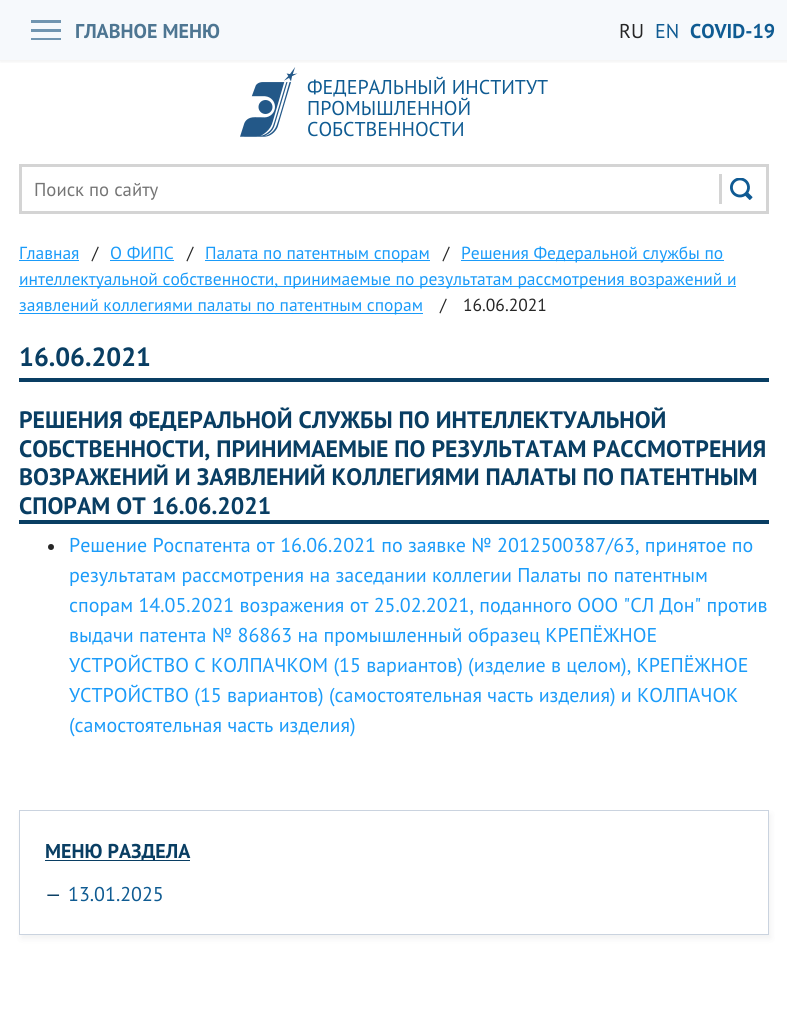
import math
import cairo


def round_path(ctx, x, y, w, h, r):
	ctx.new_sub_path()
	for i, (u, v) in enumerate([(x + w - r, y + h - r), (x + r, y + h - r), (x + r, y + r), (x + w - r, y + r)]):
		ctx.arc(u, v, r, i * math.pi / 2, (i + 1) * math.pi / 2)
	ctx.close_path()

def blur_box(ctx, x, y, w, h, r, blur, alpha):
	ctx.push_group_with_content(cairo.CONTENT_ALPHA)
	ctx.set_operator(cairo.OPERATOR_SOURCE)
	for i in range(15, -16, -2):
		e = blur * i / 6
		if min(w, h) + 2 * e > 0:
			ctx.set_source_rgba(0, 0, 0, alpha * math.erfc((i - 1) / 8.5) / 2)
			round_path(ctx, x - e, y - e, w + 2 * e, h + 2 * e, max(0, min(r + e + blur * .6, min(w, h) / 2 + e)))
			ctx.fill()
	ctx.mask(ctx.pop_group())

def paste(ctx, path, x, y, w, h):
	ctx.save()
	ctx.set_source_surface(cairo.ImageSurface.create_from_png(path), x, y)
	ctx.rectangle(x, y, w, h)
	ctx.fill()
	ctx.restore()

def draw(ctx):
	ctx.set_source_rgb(1, 1, 1)
	ctx.paint()
	ctx.set_source_rgb(0.961, 0.976, 0.988)
	ctx.rectangle(0, 0, 787, 60)
	ctx.fill()
	paste(ctx, 'media/1.png', 240, 67, 58, 70)
	ctx.save()
	ctx.rectangle(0, 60, 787, 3)
	ctx.clip()
	ctx.set_source_rgb(0.302, 0.302, 0.302)
	blur_box(ctx, 0, 0, 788, 60, 0, 3, 0.14)
	ctx.restore()
	ctx.set_source_rgb(0.443, 0.584, 0.69)
	ctx.rectangle(31, 38, 30, 2)
	ctx.rectangle(31, 29, 30, 3)
	ctx.rectangle(31, 20, 30, 3)
	ctx.fill()
	ctx.select_font_face('PT Sans', cairo.FONT_SLANT_NORMAL, cairo.FONT_WEIGHT_BOLD)
	ctx.set_font_size(20)
	ctx.set_source_rgb(0.306, 0.463, 0.573)
	ctx.move_to(75, 38)
	ctx.show_text('ГЛАВНОЕ МЕНЮ')
	ctx.select_font_face('PT Sans')
	ctx.set_source_rgb(0.149, 0.149, 0.149)
	ctx.move_to(619, 38)
	ctx.show_text('RU')
	ctx.set_source_rgb(0.059, 0.357, 0.573)
	ctx.move_to(655, 38)
	ctx.show_text('EN')
	ctx.select_font_face('PT Sans', cairo.FONT_SLANT_NORMAL, cairo.FONT_WEIGHT_BOLD)
	ctx.move_to(690, 38)
	ctx.show_text('СOVID-19')
	ctx.select_font_face('PT Sans')
	for x, y, s in [
		(307, 94, 'ФЕДЕРАЛЬНЫЙ ИНСТИТУТ'),
		(307, 115, 'ПРОМЫШЛЕННОЙ'),
		(307, 136, 'СОБСТВЕННОСТИ'),
	]:
		ctx.move_to(x, y)
		ctx.show_text(s)
	ctx.rectangle(20.5, 165.5, 747, 47)
	ctx.set_source_rgb(0.831, 0.831, 0.831)
	ctx.set_line_width(3)
	ctx.stroke()
	ctx.set_font_size(18.75)
	ctx.set_source_rgb(0.459, 0.459, 0.459)
	ctx.move_to(34, 196)
	ctx.show_text('Поиск по сайту')
	paste(ctx, 'media/2.png', 730, 178, 23, 22)
	ctx.set_source_rgb(0.831, 0.831, 0.831)
	ctx.rectangle(719, 174, 3, 30)
	ctx.fill()
	ctx.set_font_size(17.5)
	ctx.set_source_rgb(0.102, 0.608, 0.976)
	ctx.move_to(19, 259)
	ctx.show_text('Главная')
	ctx.rectangle(19, 260, 60, 1)
	ctx.fill()
	ctx.set_source_rgb(0.149, 0.149, 0.149)
	ctx.move_to(92, 259)
	ctx.show_text('/')
	ctx.set_source_rgb(0.102, 0.608, 0.976)
	ctx.move_to(110, 259)
	ctx.show_text('О ФИПС')
	ctx.rectangle(110, 260, 64, 1)
	ctx.fill()
	ctx.set_source_rgb(0.149, 0.149, 0.149)
	ctx.move_to(187, 259)
	ctx.show_text('/')
	ctx.set_source_rgb(0.102, 0.608, 0.976)
	ctx.rectangle(205, 260, 225, 1)
	ctx.fill()
	ctx.move_to(205, 259)
	ctx.show_text('Палата по патентным спорам')
	ctx.set_source_rgb(0.149, 0.149, 0.149)
	ctx.move_to(443, 259)
	ctx.show_text('/')
	ctx.set_source_rgb(0.102, 0.608, 0.976)
	ctx.rectangle(461, 260, 263, 1)
	ctx.fill()
	ctx.move_to(461, 259)
	ctx.show_text('Решения Федеральной службы по')
	ctx.rectangle(19, 286, 717, 1)
	ctx.fill()
	ctx.move_to(19, 285)
	ctx.show_text('интеллектуальной собственности, принимаемые по результатам рассмотрения возражений и')
	ctx.rectangle(19, 313, 404, 1)
	ctx.fill()
	ctx.move_to(19, 311)
	ctx.show_text('заявлений коллегиями палаты по патентным спорам')
	ctx.set_source_rgb(0.149, 0.149, 0.149)
	ctx.move_to(440, 311)
	ctx.show_text('/')
	ctx.move_to(463, 311)
	ctx.show_text('16.06.2021')
	ctx.set_source_rgb(0.039, 0.243, 0.388)
	ctx.rectangle(19, 378, 750, 4)
	ctx.fill()
	ctx.select_font_face('PT Sans', cairo.FONT_SLANT_NORMAL, cairo.FONT_WEIGHT_BOLD)
	ctx.set_font_size(26.25)
	ctx.move_to(19, 366)
	ctx.show_text('16.06.2021')
	ctx.rectangle(19, 520, 750, 4)
	ctx.fill()
	ctx.set_font_size(23.75)
	for x, y, s in [
		(19, 428, 'РЕШЕНИЯ ФЕДЕРАЛЬНОЙ СЛУЖБЫ ПО ИНТЕЛЛЕКТУАЛЬНОЙ'),
		(19, 457, 'СОБСТВЕННОСТИ, ПРИНИМАЕМЫЕ ПО РЕЗУЛЬТАТАМ РАССМОТРЕНИЯ'),
		(19, 485, 'ВОЗРАЖЕНИЙ И ЗАЯВЛЕНИЙ КОЛЛЕГИЯМИ ПАЛАТЫ ПО ПАТЕНТНЫМ'),
		(19, 514, 'СПОРАМ ОТ 16.06.2021'),
	]:
		ctx.move_to(x, y)
		ctx.show_text(s)
	ctx.set_source_rgb(0.149, 0.149, 0.149)
	ctx.new_path()
	ctx.arc(51, 547, 3, 0, 2 * math.pi)
	ctx.fill()
	ctx.select_font_face('PT Sans')
	ctx.set_font_size(20)
	ctx.set_source_rgb(0.102, 0.608, 0.976)
	for x, y, s in [
		(69, 552, 'Решение Роспатента от 16.06.2021 по заявке № 2012500387/63, принятое по'),
		(69, 582, 'результатам рассмотрения на заседании коллегии Палаты по патентным'),
		(69, 612, 'спорам 14.05.2021 возражения от 25.02.2021, поданного ООО "СЛ Дон" против'),
		(69, 642, 'выдачи патента № 86863 на промышленный образец КРЕПЁЖНОЕ'),
		(69, 672, 'УСТРОЙСТВО С КОЛПАЧКОМ (15 вариантов) (изделие в целом), КРЕПЁЖНОЕ'),
		(69, 702, 'УСТРОЙСТВО (15 вариантов) (самостоятельная часть изделия) и КОЛПАЧОК'),
		(69, 732, '(самостоятельная часть изделия)'),
	]:
		ctx.move_to(x, y)
		ctx.show_text(s)
	ctx.save()
	ctx.set_fill_rule(cairo.FILL_RULE_EVEN_ODD)
	ctx.new_path()
	ctx.move_to(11, 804)
	ctx.line_to(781, 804)
	ctx.line_to(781, 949)
	ctx.line_to(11, 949)
	ctx.close_path()
	ctx.move_to(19, 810)
	ctx.line_to(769, 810)
	ctx.line_to(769, 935)
	ctx.line_to(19, 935)
	ctx.close_path()
	ctx.clip()
	ctx.set_source_rgb(0.102, 0.122, 0.125)
	blur_box(ctx, 21, 814, 750, 125, 0, 3, 0.06)
	ctx.restore()
	ctx.rectangle(19.5, 810.5, 749, 124)
	ctx.set_source_rgb(0.792, 0.827, 0.875)
	ctx.set_line_width(1)
	ctx.stroke()
	ctx.set_source_rgb(0.039, 0.243, 0.388)
	ctx.rectangle(45, 860, 145, 1)
	ctx.fill()
	ctx.select_font_face('PT Sans', cairo.FONT_SLANT_NORMAL, cairo.FONT_WEIGHT_BOLD)
	ctx.move_to(45, 858)
	ctx.show_text('МЕНЮ РАЗДЕЛА')
	ctx.select_font_face('PT Sans')
	ctx.move_to(45, 901)
	ctx.show_text('—')
	ctx.set_source_rgb(0.059, 0.357, 0.573)
	ctx.move_to(68, 901)
	ctx.show_text('13.01.2025')


surface = cairo.ImageSurface(cairo.FORMAT_RGB24, 787, 1031)
ctx = cairo.Context(surface)
options = cairo.FontOptions()
options.set_hint_metrics(cairo.HINT_METRICS_OFF)
options.set_hint_style(cairo.HINT_STYLE_NONE)
ctx.set_font_options(options)
ctx.set_miter_limit(4)
draw(ctx)
surface.write_to_png('image.png')
